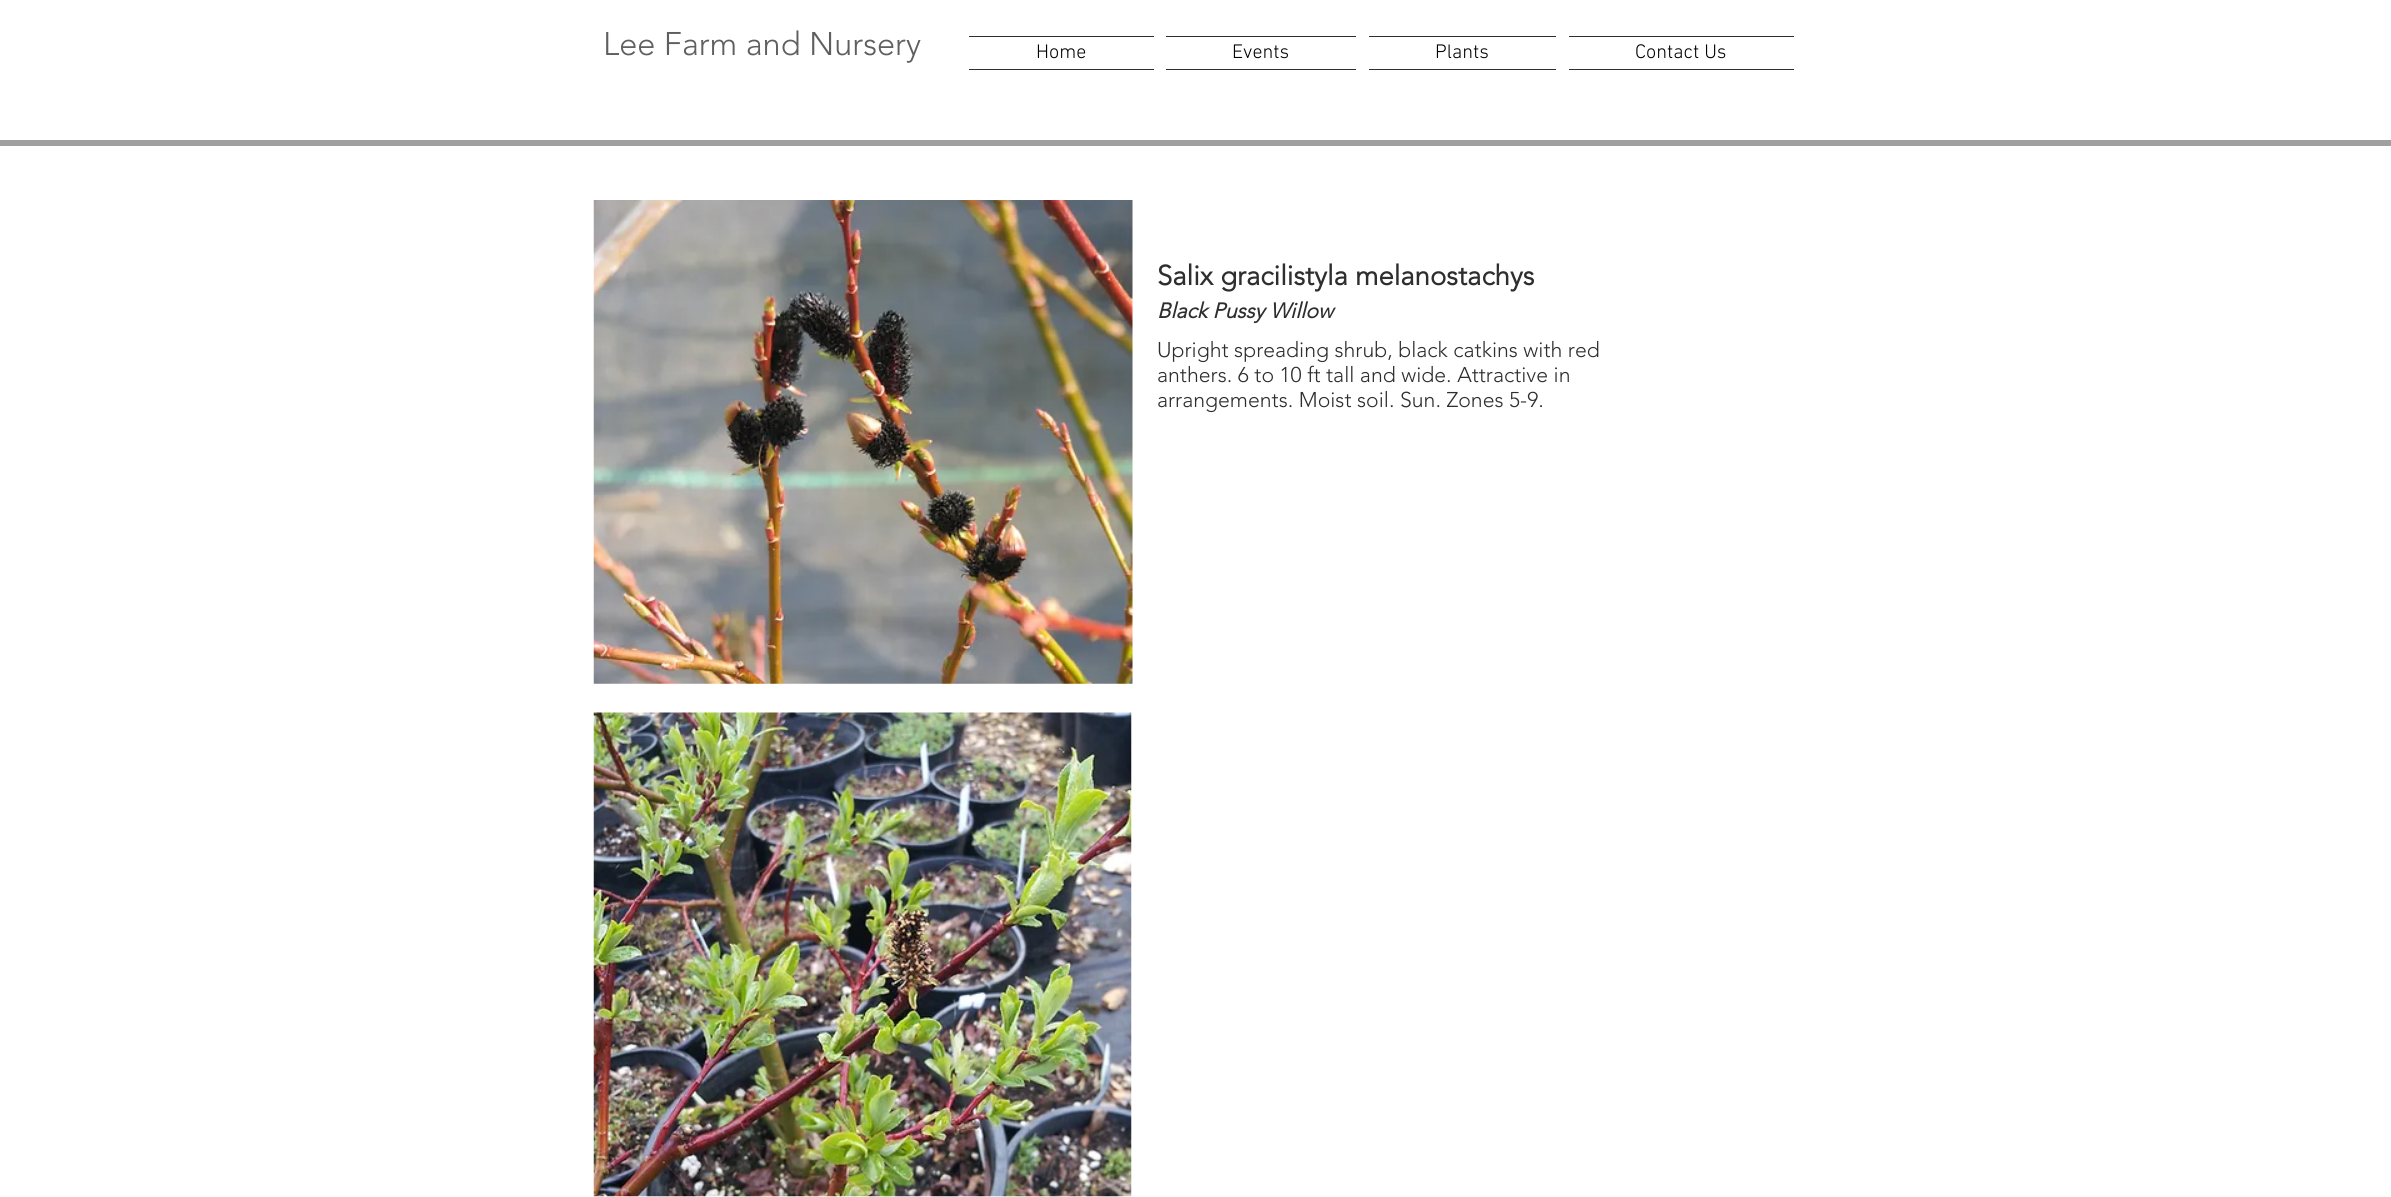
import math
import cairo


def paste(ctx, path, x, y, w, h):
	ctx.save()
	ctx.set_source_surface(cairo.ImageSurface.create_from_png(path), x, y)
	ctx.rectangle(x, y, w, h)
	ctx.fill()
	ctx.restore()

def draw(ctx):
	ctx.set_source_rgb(1, 1, 1)
	ctx.paint()
	ctx.select_font_face('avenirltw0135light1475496 Light')
	ctx.set_font_size(32.5)
	ctx.set_source_rgb(0.376, 0.369, 0.369)
	ctx.move_to(603, 55)
	ctx.show_text('Lee Farm and Nursery')
	ctx.set_source_rgb(0.184, 0.18, 0.18)
	ctx.rectangle(969, 36, 185, 1)
	ctx.fill()
	ctx.rectangle(969, 69, 185, 1)
	ctx.fill()
	ctx.select_font_face('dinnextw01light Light')
	ctx.set_font_size(20)
	ctx.set_source_rgb(0, 0, 0)
	ctx.move_to(1036, 58)
	ctx.show_text('Home')
	ctx.set_source_rgb(0.184, 0.18, 0.18)
	ctx.rectangle(1166, 36, 190, 1)
	ctx.fill()
	ctx.rectangle(1166, 69, 190, 1)
	ctx.fill()
	ctx.set_source_rgb(0, 0, 0)
	ctx.move_to(1232, 58)
	ctx.show_text('Events')
	ctx.set_source_rgb(0.184, 0.18, 0.18)
	ctx.rectangle(1369, 36, 187, 1)
	ctx.fill()
	ctx.rectangle(1369, 69, 187, 1)
	ctx.fill()
	ctx.set_source_rgb(0, 0, 0)
	ctx.move_to(1435, 58)
	ctx.show_text('Plants')
	ctx.set_source_rgb(0.184, 0.18, 0.18)
	ctx.rectangle(1569, 36, 225, 1)
	ctx.fill()
	ctx.rectangle(1569, 69, 225, 1)
	ctx.fill()
	ctx.set_source_rgb(0, 0, 0)
	ctx.move_to(1635, 58)
	ctx.show_text('Contact Us')
	ctx.set_source_rgb(0.627, 0.627, 0.624)
	ctx.rectangle(0, 140, 2391, 6)
	ctx.fill()
	paste(ctx, 'media/1.png', 593, 200, 540, 484)
	ctx.select_font_face('avenirltw0135light1475496', cairo.FONT_SLANT_NORMAL, cairo.FONT_WEIGHT_BOLD)
	ctx.set_font_size(27.5)
	ctx.set_source_rgb(0.184, 0.18, 0.18)
	ctx.move_to(1157, 285)
	ctx.show_text('Salix gracilistyla melanostachys')
	ctx.select_font_face('avenirltw0135light1475496', cairo.FONT_SLANT_ITALIC, cairo.FONT_WEIGHT_BOLD)
	ctx.set_font_size(21.25)
	ctx.move_to(1157, 318)
	ctx.show_text('Black Pussy Willow')
	ctx.select_font_face('avenirltw0135light1475496 Light')
	for x, y, s in [
		(1157, 357, 'Upright spreading shrub, black catkins with red'),
		(1157, 382, 'anthers. 6 to 10 ft tall and wide. Attractive in'),
		(1157, 407, 'arrangements. Moist soil. Sun. Zones 5-9.'),
	]:
		ctx.move_to(x, y)
		ctx.show_text(s)
	paste(ctx, 'media/2.png', 593, 712, 539, 485)


surface = cairo.ImageSurface(cairo.FORMAT_RGB24, 2391, 1197)
ctx = cairo.Context(surface)
options = cairo.FontOptions()
options.set_hint_metrics(cairo.HINT_METRICS_OFF)
options.set_hint_style(cairo.HINT_STYLE_NONE)
ctx.set_font_options(options)
ctx.set_miter_limit(4)
draw(ctx)
surface.write_to_png('image.png')
